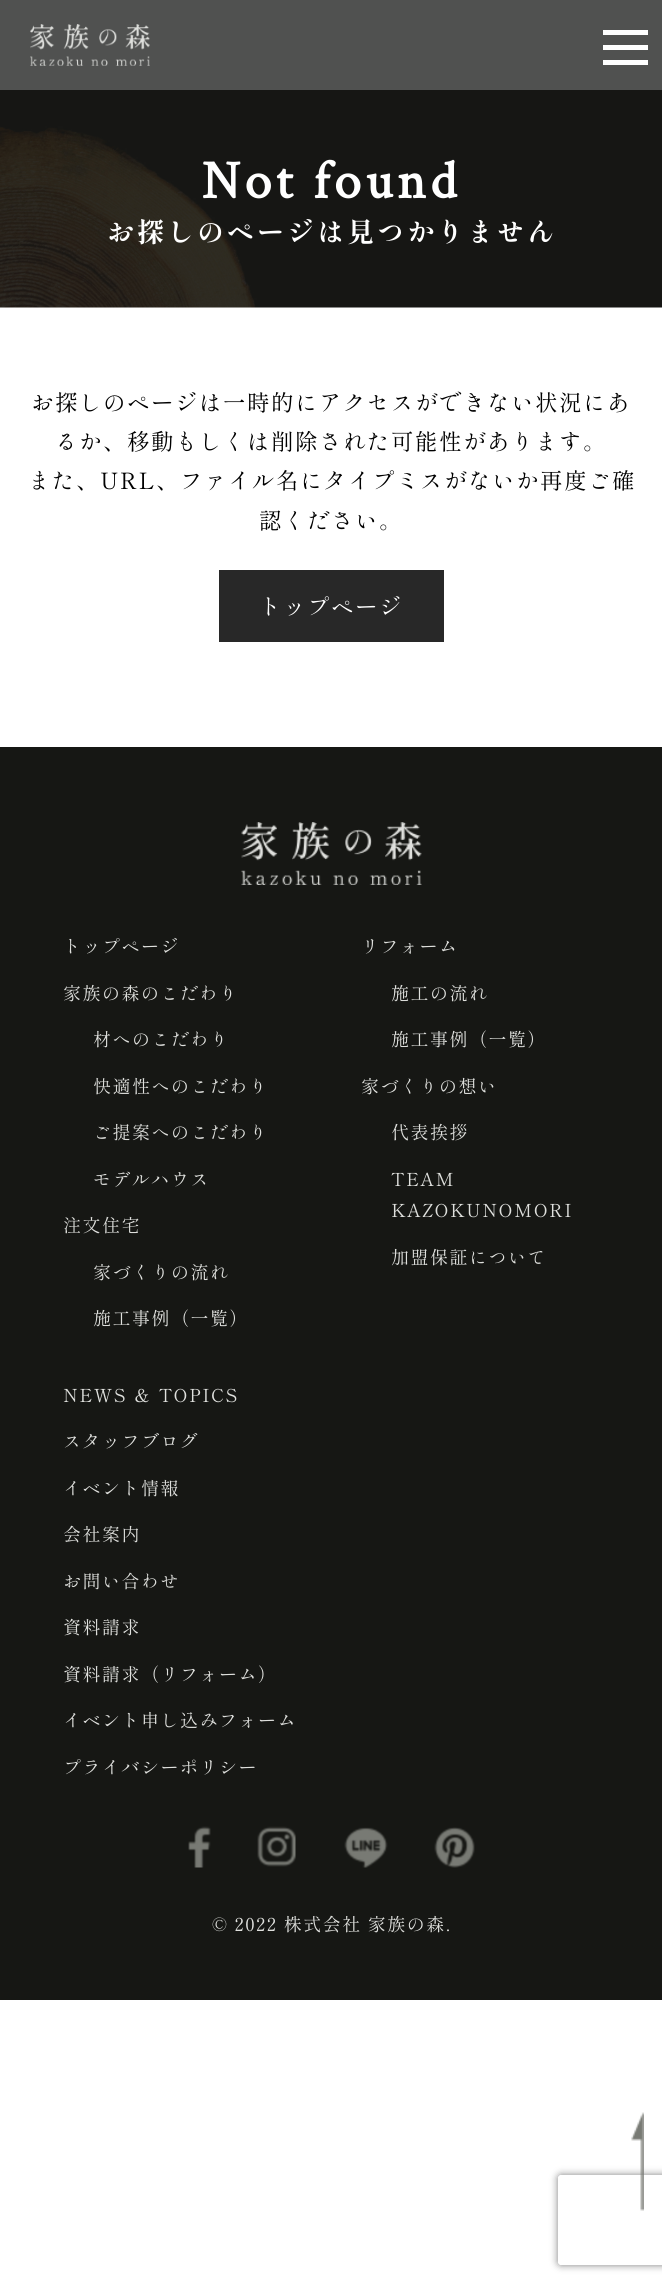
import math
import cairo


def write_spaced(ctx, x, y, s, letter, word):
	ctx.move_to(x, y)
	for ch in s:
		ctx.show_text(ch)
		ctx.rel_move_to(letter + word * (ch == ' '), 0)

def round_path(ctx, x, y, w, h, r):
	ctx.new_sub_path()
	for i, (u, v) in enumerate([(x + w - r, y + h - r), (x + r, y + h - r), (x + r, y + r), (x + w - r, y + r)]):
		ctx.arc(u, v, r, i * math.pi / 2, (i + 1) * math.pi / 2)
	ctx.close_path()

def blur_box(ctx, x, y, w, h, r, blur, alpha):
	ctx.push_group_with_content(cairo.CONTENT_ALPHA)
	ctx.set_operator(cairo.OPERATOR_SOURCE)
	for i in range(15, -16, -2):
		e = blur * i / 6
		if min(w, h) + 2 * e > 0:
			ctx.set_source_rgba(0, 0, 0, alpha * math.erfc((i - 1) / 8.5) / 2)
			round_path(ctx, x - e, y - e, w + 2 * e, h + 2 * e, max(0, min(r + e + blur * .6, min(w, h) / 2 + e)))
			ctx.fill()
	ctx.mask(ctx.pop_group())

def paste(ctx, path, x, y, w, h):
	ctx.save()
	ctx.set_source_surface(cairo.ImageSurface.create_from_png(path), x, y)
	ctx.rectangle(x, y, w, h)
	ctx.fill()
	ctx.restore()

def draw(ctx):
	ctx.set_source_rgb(1, 1, 1)
	ctx.paint()
	ctx.set_source_rgb(0.314, 0.318, 0.314)
	ctx.rectangle(0, 0, 662, 90)
	ctx.fill()
	paste(ctx, 'media/1.png', 30, 24, 120, 42)
	ctx.set_source_rgb(1, 1, 1)
	ctx.rectangle(603, 30, 45, 5)
	ctx.rectangle(603, 45, 45, 5)
	ctx.rectangle(603, 60, 45, 5)
	ctx.fill()
	paste(ctx, 'media/2.png', 0, 90, 662, 218)
	ctx.select_font_face('Crimson Text', cairo.FONT_SLANT_NORMAL, cairo.FONT_WEIGHT_BOLD)
	ctx.set_font_size(54)
	write_spaced(ctx, 202, 198, 'Not found', 4.5, 0)
	ctx.select_font_face('Shippori Mincho', cairo.FONT_SLANT_NORMAL, cairo.FONT_WEIGHT_BOLD)
	ctx.set_font_size(27)
	write_spaced(ctx, 107, 242, 'お探しのページは見つかりません', 3, 0)
	ctx.select_font_face('Shippori Mincho')
	ctx.set_font_size(22.5)
	ctx.set_source_rgb(0, 0, 0)
	for x, y, s in [
		(31, 411, 'お探しのページは一時的にアクセスができない状況にあ'),
		(55, 450, 'るか、移動もしくは削除された可能性があります。'),
		(28, 489, 'また、URL、ファイル名にタイプミスがないか再度ご確'),
		(259, 529, '認ください。'),
	]:
		write_spaced(ctx, x, y, s, 1.5, 0)
	ctx.set_source_rgb(0.157, 0.157, 0.157)
	ctx.rectangle(219, 570, 225, 72)
	ctx.fill()
	ctx.set_source_rgb(1, 1, 1)
	write_spaced(ctx, 259, 615, 'トップページ', 1.5, 0)
	ctx.set_source_rgb(0.086, 0.09, 0.082)
	ctx.rectangle(0, 747, 662, 1253)
	ctx.fill()
	paste(ctx, 'media/3.png', 241, 822, 181, 63)
	ctx.set_font_size(18)
	ctx.set_source_rgb(0.875, 0.878, 0.867)
	for x, y, s in [
		(63, 953, 'トップページ'),
		(63, 1000, '家族の森のこだわり'),
		(93, 1046, '材へのこだわり'),
		(93, 1093, '快適性へのこだわり'),
		(93, 1139, 'ご提案へのこだわり'),
		(93, 1186, 'モデルハウス'),
		(63, 1232, '注文住宅'),
		(93, 1279, '家づくりの流れ'),
		(93, 1325, '施工事例（一覧）'),
		(361, 953, 'リフォーム'),
		(391, 1000, '施工の流れ'),
		(391, 1046, '施工事例（一覧）'),
		(361, 1093, '家づくりの想い'),
		(391, 1139, '代表挨拶'),
		(391, 1186, 'TEAM'),
		(391, 1217, 'KAZOKUNOMORI'),
		(391, 1264, '加盟保証について'),
		(63, 1402, 'NEWS ＆ TOPICS'),
		(63, 1448, 'スタッフブログ'),
		(63, 1495, 'イベント情報'),
		(63, 1541, '会社案内'),
		(63, 1588, 'お問い合わせ'),
		(63, 1634, '資料請求'),
		(63, 1681, '資料請求（リフォーム）'),
		(63, 1727, 'イベント申し込みフォーム'),
		(63, 1774, 'プライバシーポリシー'),
	]:
		write_spaced(ctx, x, y, s, 1.5, 0)
	paste(ctx, 'media/4.png', 188, 1826, 23, 42)
	paste(ctx, 'media/5.png', 257, 1826, 39, 41)
	paste(ctx, 'media/6.png', 344, 1827, 44, 41)
	paste(ctx, 'media/7.png', 434, 1827, 41, 41)
	write_spaced(ctx, 212, 1931, '© 2022 株式会社 家族の森.', 1.5, 0)
	ctx.save()
	ctx.set_fill_rule(cairo.FILL_RULE_EVEN_ODD)
	ctx.new_path()
	ctx.move_to(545, 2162)
	ctx.line_to(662, 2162)
	ctx.line_to(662, 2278)
	ctx.line_to(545, 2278)
	ctx.close_path()
	ctx.move_to(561, 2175)
	ctx.line_to(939, 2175)
	ctx.curve_to(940.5, 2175, 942, 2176.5, 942, 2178)
	ctx.line_to(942, 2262)
	ctx.curve_to(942, 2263.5, 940.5, 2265, 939, 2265)
	ctx.line_to(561, 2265)
	ctx.curve_to(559.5, 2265, 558, 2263.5, 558, 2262)
	ctx.line_to(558, 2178)
	ctx.curve_to(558, 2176.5, 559.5, 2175, 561, 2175)
	ctx.close_path()
	ctx.clip()
	ctx.set_source_rgb(0.502, 0.502, 0.502)
	blur_box(ctx, 558, 2175, 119, 90, 3, 4, 1)
	ctx.restore()
	paste(ctx, 'media/8.png', 631, 2112, 13, 99)


surface = cairo.ImageSurface(cairo.FORMAT_RGB24, 662, 2285)
ctx = cairo.Context(surface)
options = cairo.FontOptions()
options.set_hint_metrics(cairo.HINT_METRICS_OFF)
options.set_hint_style(cairo.HINT_STYLE_NONE)
ctx.set_font_options(options)
ctx.set_miter_limit(4)
draw(ctx)
surface.write_to_png('image.png')
